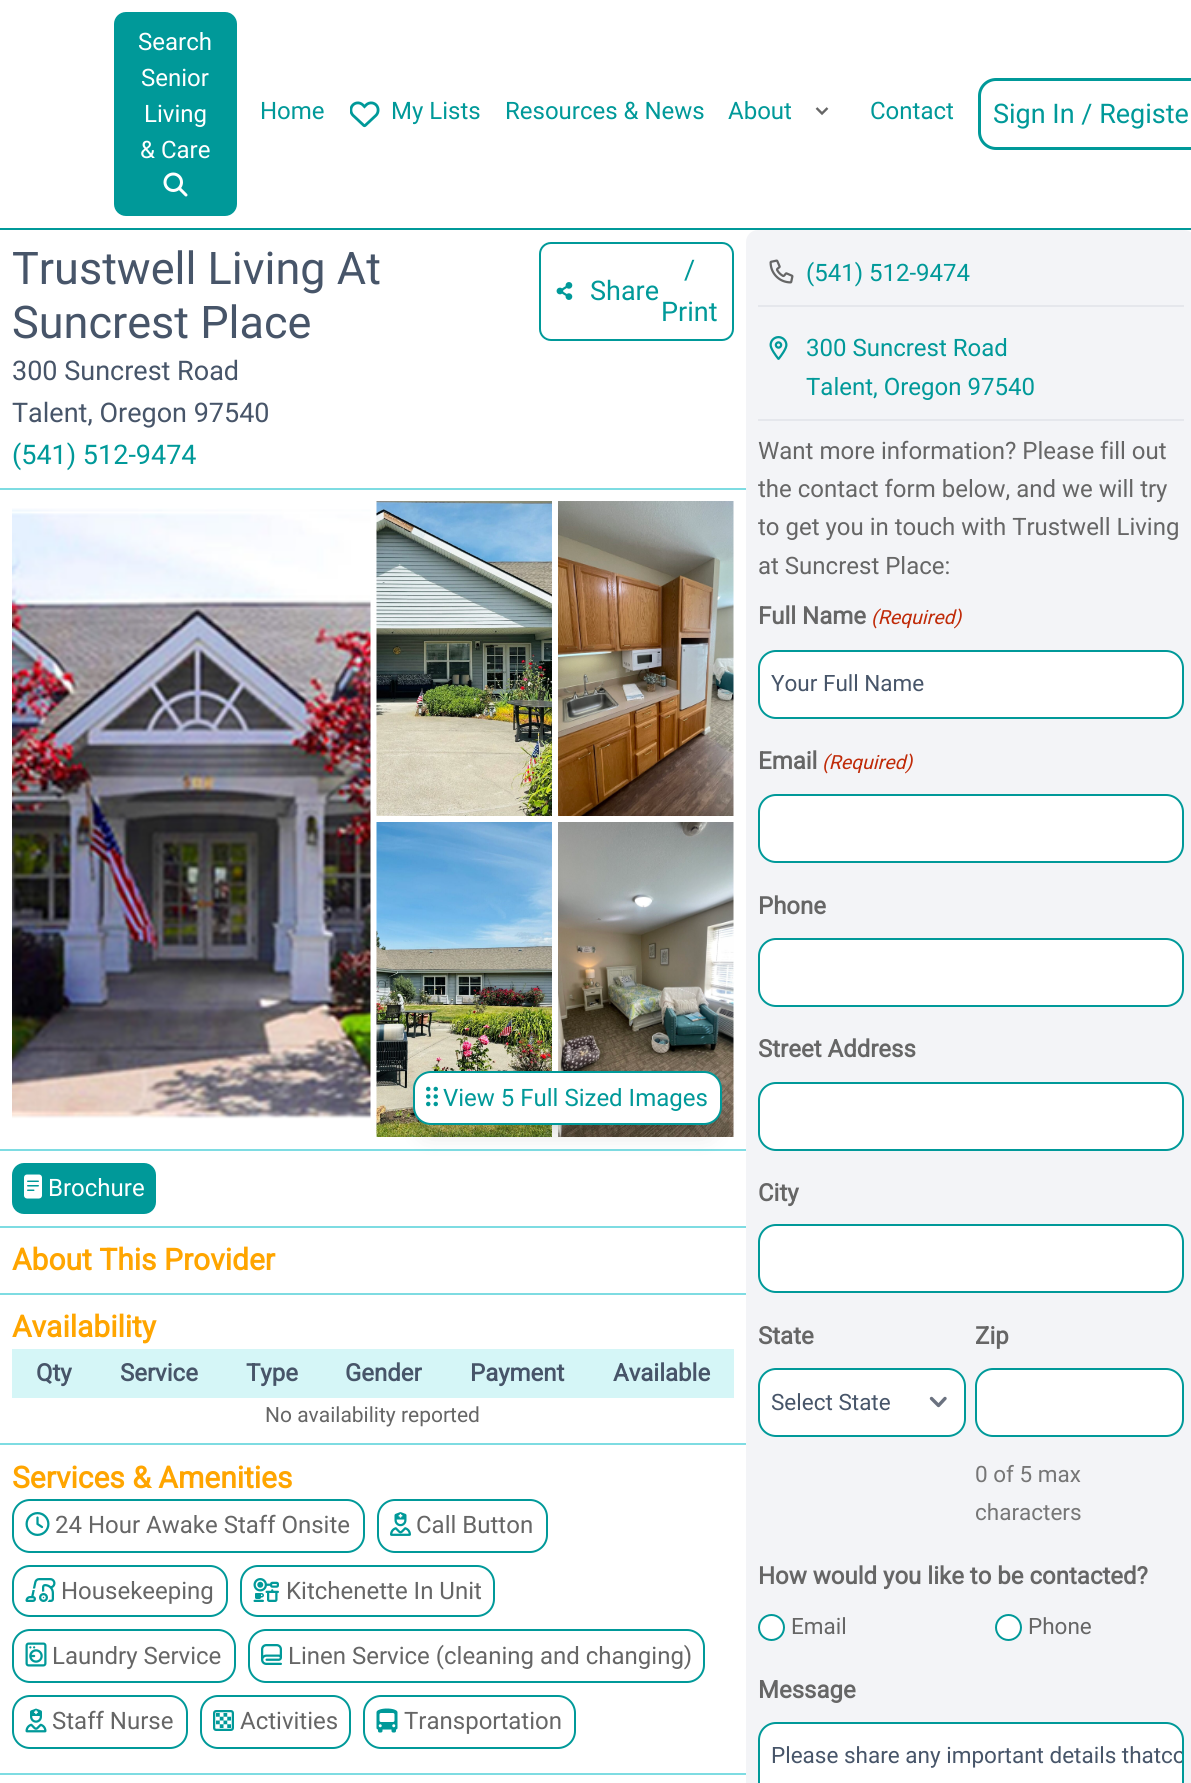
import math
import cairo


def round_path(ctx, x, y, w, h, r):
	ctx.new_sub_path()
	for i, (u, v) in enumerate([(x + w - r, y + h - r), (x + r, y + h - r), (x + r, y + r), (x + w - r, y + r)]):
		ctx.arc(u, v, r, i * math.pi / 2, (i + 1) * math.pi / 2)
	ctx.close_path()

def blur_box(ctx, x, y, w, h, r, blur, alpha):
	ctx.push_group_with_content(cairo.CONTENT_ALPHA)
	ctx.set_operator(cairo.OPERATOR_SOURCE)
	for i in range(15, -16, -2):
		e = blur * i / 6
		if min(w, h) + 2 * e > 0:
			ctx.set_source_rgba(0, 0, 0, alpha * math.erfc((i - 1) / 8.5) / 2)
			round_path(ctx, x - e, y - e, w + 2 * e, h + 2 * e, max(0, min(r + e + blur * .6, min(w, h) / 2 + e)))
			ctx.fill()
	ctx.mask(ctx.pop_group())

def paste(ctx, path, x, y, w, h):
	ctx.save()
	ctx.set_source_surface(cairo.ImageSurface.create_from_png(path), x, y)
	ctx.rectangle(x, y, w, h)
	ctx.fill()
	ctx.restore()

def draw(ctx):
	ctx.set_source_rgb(1, 1, 1)
	ctx.paint()
	ctx.set_source_rgb(0, 0.6, 0.6)
	ctx.rectangle(0, 228, 1191, 2)
	ctx.fill()
	round_path(ctx, 114, 12, 123, 204, 12)
	ctx.fill()
	ctx.select_font_face('Roboto')
	ctx.set_font_size(24)
	ctx.set_source_rgb(1, 1, 1)
	for x, y, s in [
		(138, 50, 'Search'),
		(141, 86, 'Senior'),
		(144, 122, 'Living'),
		(140, 158, '& Care'),
	]:
		ctx.move_to(x, y)
		ctx.show_text(s)
	paste(ctx, 'media/1.png', 163, 172, 25, 25)
	ctx.set_source_rgb(0, 0.6, 0.6)
	ctx.move_to(260, 119)
	ctx.show_text('Home')
	paste(ctx, 'media/2.png', 350, 101, 30, 27)
	for x, y, s in [
		(391, 119, 'My Lists'),
		(505, 119, 'Resources & News'),
		(728, 119, 'About'),
	]:
		ctx.move_to(x, y)
		ctx.show_text(s)
	ctx.new_path()
	ctx.move_to(816.5, 108)
	ctx.line_to(822, 113.5)
	ctx.line_to(827.5, 108)
	ctx.set_source_rgb(0.4, 0.4, 0.4)
	ctx.set_line_width(2.4)
	ctx.stroke()
	ctx.set_source_rgb(0, 0.6, 0.6)
	ctx.move_to(870, 119)
	ctx.show_text('Contact')
	round_path(ctx, 979.5, 79.5, 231, 69, 16.5)
	ctx.set_line_width(3)
	ctx.stroke()
	ctx.set_font_size(27)
	ctx.move_to(993, 123)
	ctx.show_text('Sign In / Registe')
	ctx.set_source_rgb(0.494, 0.863, 0.886)
	ctx.rectangle(0, 488, 746, 2)
	ctx.fill()
	ctx.set_font_size(45)
	ctx.set_source_rgb(0.278, 0.333, 0.412)
	ctx.move_to(12, 284)
	ctx.show_text('Trustwell Living At')
	ctx.move_to(12, 338)
	ctx.show_text('Suncrest Place')
	ctx.set_font_size(27)
	ctx.move_to(12, 380)
	ctx.show_text('300 Suncrest Road')
	ctx.move_to(12, 422)
	ctx.show_text('Talent, Oregon 97540')
	ctx.set_source_rgb(0, 0.6, 0.6)
	ctx.move_to(12, 464)
	ctx.show_text('(541) 512-9474')
	round_path(ctx, 540, 243, 193, 97, 11)
	ctx.set_line_width(2)
	ctx.stroke()
	paste(ctx, 'media/3.png', 556, 282, 17, 18)
	for x, y, s in [
		(590, 300, 'Share'),
		(684, 279, '/'),
		(661, 321, 'Print'),
	]:
		ctx.move_to(x, y)
		ctx.show_text(s)
	ctx.set_source_rgb(0.494, 0.863, 0.886)
	ctx.rectangle(0, 1149, 746, 2)
	ctx.fill()
	paste(ctx, 'media/4.png', 12, 508, 359, 611)
	paste(ctx, 'media/5.png', 376, 501, 176, 315)
	paste(ctx, 'media/6.png', 558, 501, 176, 315)
	paste(ctx, 'media/7.png', 376, 822, 176, 315)
	paste(ctx, 'media/8.png', 558, 822, 176, 315)
	ctx.set_source_rgb(0, 0, 0)
	blur_box(ctx, 419, 1083, 297, 42, 12, 4.5, 0.1)
	ctx.set_source_rgb(0.953, 0.957, 0.965)
	round_path(ctx, 746, 230, 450, 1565, 12)
	ctx.fill()
	ctx.set_source_rgb(0, 0, 0)
	blur_box(ctx, 417, 1091, 300, 45, 14, 11, 0.1)
	ctx.set_source_rgb(1, 1, 1)
	round_path(ctx, 414, 1072, 307, 52, 17)
	ctx.fill_preserve()
	ctx.set_source_rgb(0, 0.6, 0.6)
	ctx.stroke()
	paste(ctx, 'media/9.png', 426, 1086, 12, 21)
	ctx.set_font_size(24)
	ctx.move_to(443, 1106)
	ctx.show_text('View 5 Full Sized Images')
	ctx.set_source_rgb(0.494, 0.863, 0.886)
	ctx.rectangle(0, 1226, 746, 2)
	ctx.fill()
	ctx.set_source_rgb(0, 0.6, 0.6)
	round_path(ctx, 12, 1163, 144, 51, 12)
	ctx.fill()
	paste(ctx, 'media/10.png', 24, 1174, 18, 25)
	ctx.set_source_rgb(1, 1, 1)
	ctx.move_to(48, 1196)
	ctx.show_text('Brochure')
	ctx.set_source_rgb(0.494, 0.863, 0.886)
	ctx.rectangle(0, 1293, 746, 2)
	ctx.fill()
	ctx.select_font_face('Roboto', cairo.FONT_SLANT_NORMAL, cairo.FONT_WEIGHT_BOLD)
	ctx.set_font_size(30)
	ctx.set_source_rgb(1, 0.647, 0)
	ctx.move_to(12, 1270)
	ctx.show_text('About This Provider')
	ctx.set_source_rgb(0.494, 0.863, 0.886)
	ctx.rectangle(0, 1443, 746, 2)
	ctx.fill()
	ctx.set_source_rgb(1, 0.647, 0)
	ctx.move_to(12, 1337)
	ctx.show_text('Availability')
	ctx.set_source_rgb(0.835, 0.961, 0.965)
	ctx.rectangle(12, 1349, 722, 49)
	ctx.fill()
	ctx.set_font_size(24)
	ctx.set_source_rgb(0.278, 0.333, 0.412)
	for x, y, s in [
		(36, 1381, 'Qty'),
		(120, 1381, 'Service'),
		(246, 1381, 'Type'),
		(345, 1381, 'Gender'),
		(470, 1381, 'Payment'),
		(613, 1381, 'Available'),
	]:
		ctx.move_to(x, y)
		ctx.show_text(s)
	ctx.select_font_face('Roboto')
	ctx.set_font_size(21)
	ctx.set_source_rgb(0.4, 0.4, 0.4)
	ctx.move_to(265, 1422)
	ctx.show_text('No availability reported')
	ctx.set_source_rgb(0.494, 0.863, 0.886)
	ctx.rectangle(0, 1773, 746, 2)
	ctx.fill()
	ctx.select_font_face('Roboto', cairo.FONT_SLANT_NORMAL, cairo.FONT_WEIGHT_BOLD)
	ctx.set_font_size(30)
	ctx.set_source_rgb(1, 0.647, 0)
	ctx.move_to(12, 1488)
	ctx.show_text('Services & Amenities')
	round_path(ctx, 13, 1500, 351, 52, 17)
	ctx.set_source_rgb(0, 0.6, 0.6)
	ctx.stroke()
	paste(ctx, 'media/11.png', 25, 1512, 25, 24)
	ctx.select_font_face('Roboto')
	ctx.set_font_size(24)
	ctx.set_source_rgb(0.4, 0.4, 0.4)
	ctx.move_to(55, 1533)
	ctx.show_text('24 Hour Awake Staff Onsite')
	round_path(ctx, 378, 1500, 169, 52, 17)
	ctx.set_source_rgb(0, 0.6, 0.6)
	ctx.stroke()
	paste(ctx, 'media/12.png', 390, 1512, 21, 24)
	ctx.set_source_rgb(0.4, 0.4, 0.4)
	ctx.move_to(416, 1533)
	ctx.show_text('Call Button')
	round_path(ctx, 13, 1566, 214, 50, 17)
	ctx.set_source_rgb(0, 0.6, 0.6)
	ctx.stroke()
	paste(ctx, 'media/13.png', 25, 1578, 31, 24)
	ctx.set_source_rgb(0.4, 0.4, 0.4)
	ctx.move_to(61, 1599)
	ctx.show_text('Housekeeping')
	round_path(ctx, 241, 1566, 253, 50, 17)
	ctx.set_source_rgb(0, 0.6, 0.6)
	ctx.stroke()
	paste(ctx, 'media/14.png', 253, 1578, 26, 24)
	ctx.set_source_rgb(0.4, 0.4, 0.4)
	ctx.move_to(286, 1599)
	ctx.show_text('Kitchenette In Unit')
	round_path(ctx, 13, 1630, 222, 52, 17)
	ctx.set_source_rgb(0, 0.6, 0.6)
	ctx.stroke()
	paste(ctx, 'media/15.png', 25, 1642, 22, 25)
	ctx.set_source_rgb(0.4, 0.4, 0.4)
	ctx.move_to(52, 1664)
	ctx.show_text('Laundry Service')
	round_path(ctx, 249, 1630, 455, 52, 17)
	ctx.set_source_rgb(0, 0.6, 0.6)
	ctx.stroke()
	paste(ctx, 'media/16.png', 261, 1644, 21, 21)
	ctx.set_source_rgb(0.4, 0.4, 0.4)
	ctx.move_to(288, 1664)
	ctx.show_text('Linen Service (cleaning and changing)')
	round_path(ctx, 13, 1696, 174, 52, 17)
	ctx.set_source_rgb(0, 0.6, 0.6)
	ctx.stroke()
	paste(ctx, 'media/17.png', 25, 1708, 22, 25)
	ctx.set_source_rgb(0.4, 0.4, 0.4)
	ctx.move_to(52, 1729)
	ctx.show_text('Staff Nurse')
	round_path(ctx, 201, 1696, 149, 52, 17)
	ctx.set_source_rgb(0, 0.6, 0.6)
	ctx.stroke()
	paste(ctx, 'media/18.png', 213, 1710, 21, 21)
	ctx.set_source_rgb(0.4, 0.4, 0.4)
	ctx.move_to(240, 1729)
	ctx.show_text('Activities')
	round_path(ctx, 364, 1696, 211, 52, 17)
	ctx.set_source_rgb(0, 0.6, 0.6)
	ctx.stroke()
	paste(ctx, 'media/19.png', 376, 1708, 22, 25)
	ctx.set_source_rgb(0.4, 0.4, 0.4)
	ctx.move_to(404, 1729)
	ctx.show_text('Transportation')
	ctx.set_source_rgb(0.898, 0.906, 0.922)
	ctx.rectangle(758, 305, 426, 2)
	ctx.fill()
	paste(ctx, 'media/20.png', 769, 259, 25, 25)
	ctx.set_source_rgb(0, 0.6, 0.6)
	ctx.move_to(806, 281)
	ctx.show_text('(541) 512-9474')
	ctx.set_source_rgb(0.898, 0.906, 0.922)
	ctx.rectangle(758, 419, 426, 2)
	ctx.fill()
	paste(ctx, 'media/21.png', 769, 336, 19, 24)
	ctx.set_source_rgb(0, 0.6, 0.6)
	ctx.move_to(806, 356)
	ctx.show_text('300 Suncrest Road')
	ctx.move_to(806, 395)
	ctx.show_text('Talent, Oregon 97540')
	ctx.set_source_rgb(0.4, 0.4, 0.4)
	for x, y, s in [
		(758, 459, 'Want more information? Please fill out'),
		(758, 497, 'the contact form below, and we will try'),
		(758, 535, 'to get you in touch with Trustwell Living'),
		(758, 574, 'at Suncrest Place:'),
	]:
		ctx.move_to(x, y)
		ctx.show_text(s)
	ctx.select_font_face('Roboto', cairo.FONT_SLANT_NORMAL, cairo.FONT_WEIGHT_BOLD)
	ctx.move_to(758, 624)
	ctx.show_text('Full Name')
	ctx.select_font_face('Roboto', cairo.FONT_SLANT_ITALIC)
	ctx.set_font_size(19.5)
	ctx.set_source_rgb(0.753, 0.169, 0.039)
	ctx.move_to(871, 624)
	ctx.show_text('(Required)')
	ctx.set_source_rgb(1, 1, 1)
	round_path(ctx, 759, 651, 424, 67, 17)
	ctx.fill_preserve()
	ctx.set_source_rgb(0, 0.6, 0.6)
	ctx.stroke()
	ctx.select_font_face('Roboto')
	ctx.set_font_size(22.5)
	ctx.set_source_rgb(0.278, 0.333, 0.412)
	ctx.move_to(771, 691)
	ctx.show_text('Your Full Name')
	ctx.select_font_face('Roboto', cairo.FONT_SLANT_NORMAL, cairo.FONT_WEIGHT_BOLD)
	ctx.set_font_size(24)
	ctx.set_source_rgb(0.4, 0.4, 0.4)
	ctx.move_to(758, 769)
	ctx.show_text('Email')
	ctx.select_font_face('Roboto', cairo.FONT_SLANT_ITALIC)
	ctx.set_font_size(19.5)
	ctx.set_source_rgb(0.753, 0.169, 0.039)
	ctx.move_to(822, 769)
	ctx.show_text('(Required)')
	ctx.set_source_rgb(1, 1, 1)
	round_path(ctx, 759, 795, 424, 67, 17)
	ctx.fill_preserve()
	ctx.set_source_rgb(0, 0.6, 0.6)
	ctx.stroke()
	ctx.select_font_face('Roboto', cairo.FONT_SLANT_NORMAL, cairo.FONT_WEIGHT_BOLD)
	ctx.set_font_size(24)
	ctx.set_source_rgb(0.4, 0.4, 0.4)
	ctx.move_to(758, 914)
	ctx.show_text('Phone')
	ctx.set_source_rgb(1, 1, 1)
	round_path(ctx, 759, 939, 424, 67, 17)
	ctx.fill_preserve()
	ctx.set_source_rgb(0, 0.6, 0.6)
	ctx.stroke()
	ctx.set_source_rgb(0.4, 0.4, 0.4)
	ctx.move_to(758, 1057)
	ctx.show_text('Street Address')
	ctx.set_source_rgb(1, 1, 1)
	round_path(ctx, 759, 1083, 424, 67, 17)
	ctx.fill_preserve()
	ctx.set_source_rgb(0, 0.6, 0.6)
	ctx.stroke()
	ctx.set_source_rgb(0.4, 0.4, 0.4)
	ctx.move_to(758, 1201)
	ctx.show_text('City')
	ctx.set_source_rgb(1, 1, 1)
	round_path(ctx, 759, 1225, 424, 67, 17)
	ctx.fill_preserve()
	ctx.set_source_rgb(0, 0.6, 0.6)
	ctx.stroke()
	ctx.set_source_rgb(0.4, 0.4, 0.4)
	ctx.move_to(758, 1344)
	ctx.show_text('State')
	ctx.set_source_rgb(1, 1, 1)
	round_path(ctx, 758, 1368, 208, 69, 18)
	ctx.fill()
	ctx.new_path()
	ctx.move_to(931.5, 1398.5)
	ctx.line_to(938.5, 1405.5)
	ctx.line_to(945, 1398.5)
	ctx.set_source_rgb(0.42, 0.447, 0.502)
	ctx.set_line_width(3.4)
	ctx.set_line_cap(cairo.LINE_CAP_ROUND)
	ctx.set_line_join(cairo.LINE_JOIN_ROUND)
	ctx.stroke()
	round_path(ctx, 759, 1369, 206, 67, 17)
	ctx.set_source_rgb(0, 0.6, 0.6)
	ctx.set_line_width(2)
	ctx.set_line_cap(cairo.LINE_CAP_BUTT)
	ctx.set_line_join(cairo.LINE_JOIN_MITER)
	ctx.stroke()
	ctx.select_font_face('Roboto')
	ctx.set_font_size(22.5)
	ctx.set_source_rgb(0.278, 0.333, 0.412)
	ctx.move_to(771, 1410)
	ctx.show_text('Select State')
	ctx.select_font_face('Roboto', cairo.FONT_SLANT_NORMAL, cairo.FONT_WEIGHT_BOLD)
	ctx.set_font_size(24)
	ctx.set_source_rgb(0.4, 0.4, 0.4)
	ctx.move_to(975, 1344)
	ctx.show_text('Zip')
	ctx.set_source_rgb(1, 1, 1)
	round_path(ctx, 976, 1369, 207, 67, 17)
	ctx.fill_preserve()
	ctx.set_source_rgb(0, 0.6, 0.6)
	ctx.stroke()
	ctx.select_font_face('Roboto')
	ctx.set_font_size(22.5)
	ctx.set_source_rgb(0.463, 0.463, 0.463)
	ctx.move_to(975, 1482)
	ctx.show_text('0 of 5 max')
	ctx.move_to(975, 1520)
	ctx.show_text('characters')
	ctx.select_font_face('Roboto', cairo.FONT_SLANT_NORMAL, cairo.FONT_WEIGHT_BOLD)
	ctx.set_font_size(24)
	ctx.set_source_rgb(0.4, 0.4, 0.4)
	ctx.move_to(758, 1584)
	ctx.show_text('How would you like to be contacted?')
	ctx.set_source_rgb(1, 1, 1)
	ctx.new_path()
	ctx.arc(771.5, 1627.5, 12.5, 0, 2 * math.pi)
	ctx.fill_preserve()
	ctx.set_source_rgb(0, 0.6, 0.6)
	ctx.stroke()
	ctx.select_font_face('Roboto')
	ctx.set_font_size(22.5)
	ctx.set_source_rgb(0.4, 0.4, 0.4)
	ctx.move_to(791, 1634)
	ctx.show_text('Email')
	ctx.set_source_rgb(1, 1, 1)
	ctx.new_path()
	ctx.arc(1008.5, 1627.5, 12.5, 0, 2 * math.pi)
	ctx.fill_preserve()
	ctx.set_source_rgb(0, 0.6, 0.6)
	ctx.stroke()
	ctx.set_source_rgb(0.4, 0.4, 0.4)
	ctx.move_to(1028, 1634)
	ctx.show_text('Phone')
	ctx.select_font_face('Roboto', cairo.FONT_SLANT_NORMAL, cairo.FONT_WEIGHT_BOLD)
	ctx.set_font_size(24)
	ctx.move_to(758, 1698)
	ctx.show_text('Message')
	ctx.set_source_rgb(1, 1, 1)
	round_path(ctx, 759, 1723, 424, 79, 17)
	ctx.fill_preserve()
	ctx.set_source_rgb(0, 0.6, 0.6)
	ctx.stroke()
	ctx.select_font_face('Roboto')
	ctx.set_font_size(22.5)
	ctx.set_source_rgb(0.278, 0.333, 0.412)
	ctx.move_to(771, 1763)
	ctx.show_text('Please share any important details that')
	ctx.save()
	round_path(ctx, 759, 1724, 423, 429, 17)
	ctx.clip()
	ctx.move_to(1161, 1763)
	ctx.show_text('co')
	ctx.restore()


surface = cairo.ImageSurface(cairo.FORMAT_RGB24, 1191, 1783)
ctx = cairo.Context(surface)
options = cairo.FontOptions()
options.set_hint_metrics(cairo.HINT_METRICS_OFF)
options.set_hint_style(cairo.HINT_STYLE_NONE)
ctx.set_font_options(options)
ctx.set_miter_limit(4)
draw(ctx)
surface.write_to_png('image.png')
